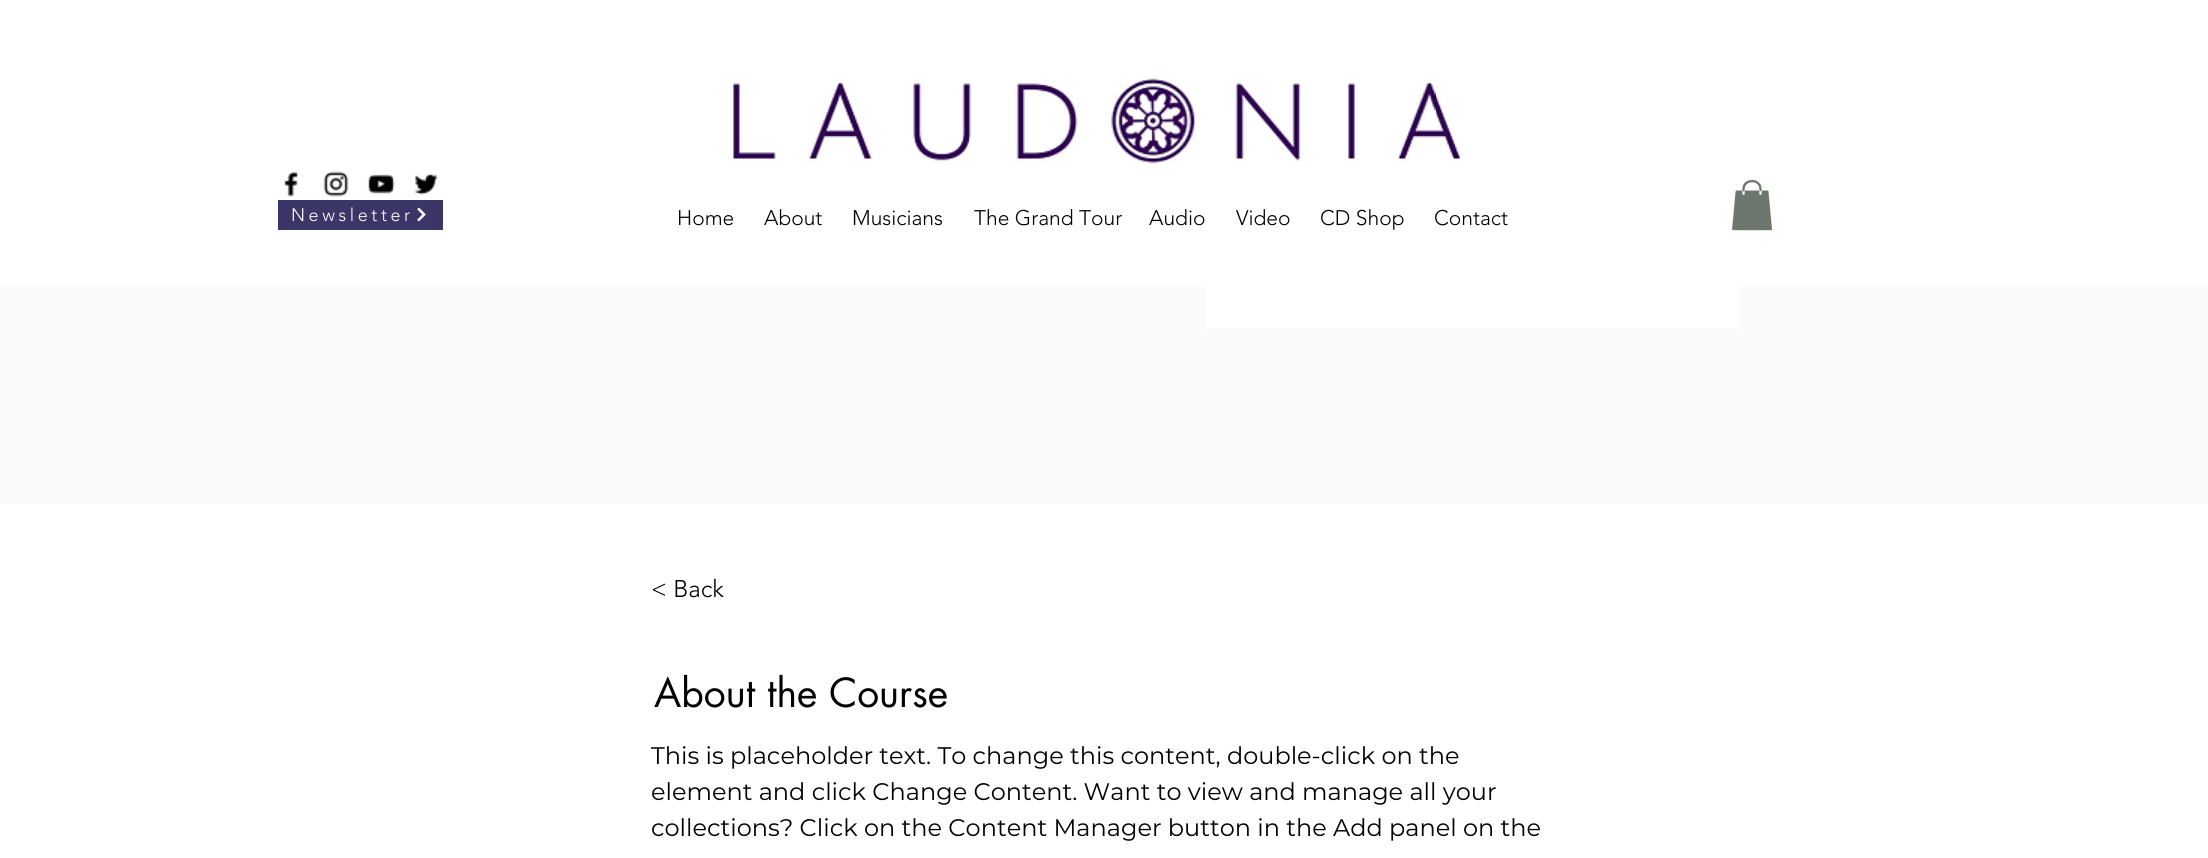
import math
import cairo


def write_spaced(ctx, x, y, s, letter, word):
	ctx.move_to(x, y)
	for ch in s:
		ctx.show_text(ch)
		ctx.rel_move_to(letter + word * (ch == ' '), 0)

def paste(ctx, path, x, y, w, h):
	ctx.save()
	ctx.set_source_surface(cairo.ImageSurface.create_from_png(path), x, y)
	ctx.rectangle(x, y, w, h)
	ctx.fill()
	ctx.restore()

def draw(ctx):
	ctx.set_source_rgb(1, 1, 1)
	ctx.paint()
	paste(ctx, 'media/1.png', 733, 78, 728, 86)
	paste(ctx, 'media/2.png', 284, 171, 14, 26)
	paste(ctx, 'media/3.png', 323, 171, 26, 26)
	paste(ctx, 'media/4.png', 367, 174, 28, 20)
	paste(ctx, 'media/5.png', 414, 173, 24, 22)
	ctx.set_source_rgb(0.235, 0.212, 0.408)
	ctx.rectangle(278, 200, 165, 30)
	ctx.fill()
	ctx.select_font_face('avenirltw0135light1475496 Light')
	ctx.set_font_size(18)
	ctx.set_source_rgb(1, 1, 1)
	write_spaced(ctx, 291, 221, 'Newsletter', 3.6, 0)
	paste(ctx, 'media/6.png', 417, 207, 9, 15)
	ctx.set_font_size(21)
	ctx.set_source_rgb(0, 0, 0)
	for x, y, s in [
		(677, 225, 'Home'),
		(764, 225, 'About'),
		(852, 225, 'Musicians'),
		(974, 225, 'The Grand Tour'),
		(1149, 225, 'Audio'),
		(1236, 225, 'Video'),
		(1320, 225, 'CD Shop'),
		(1434, 225, 'Contact'),
	]:
		ctx.move_to(x, y)
		ctx.show_text(s)
	paste(ctx, 'media/7.png', 1732, 180, 40, 51)
	ctx.set_source_rgb(0.98, 0.98, 0.98)
	ctx.rectangle(0, 287, 2208, 217)
	ctx.fill()
	ctx.set_source_rgb(1, 1, 1)
	ctx.rectangle(1206, 287, 533, 42)
	ctx.fill()
	ctx.set_font_size(24)
	ctx.set_source_rgb(0, 0, 0)
	ctx.move_to(651, 597)
	ctx.show_text('< Back')
	ctx.select_font_face('futura')
	ctx.set_font_size(39)
	ctx.move_to(654, 707)
	ctx.show_text('About the Course')
	ctx.select_font_face('Montserrat')
	ctx.set_font_size(24)
	for x, y, s in [
		(651, 764, 'This is placeholder text. To change this content, double-click on the'),
		(651, 800, 'element and click Change Content. Want to view and manage all your'),
		(651, 836, 'collections? Click on the Content Manager button in the Add panel on the'),
	]:
		ctx.move_to(x, y)
		ctx.show_text(s)


surface = cairo.ImageSurface(cairo.FORMAT_RGB24, 2208, 858)
ctx = cairo.Context(surface)
options = cairo.FontOptions()
options.set_hint_metrics(cairo.HINT_METRICS_OFF)
options.set_hint_style(cairo.HINT_STYLE_NONE)
ctx.set_font_options(options)
ctx.set_miter_limit(4)
draw(ctx)
surface.write_to_png('image.png')
